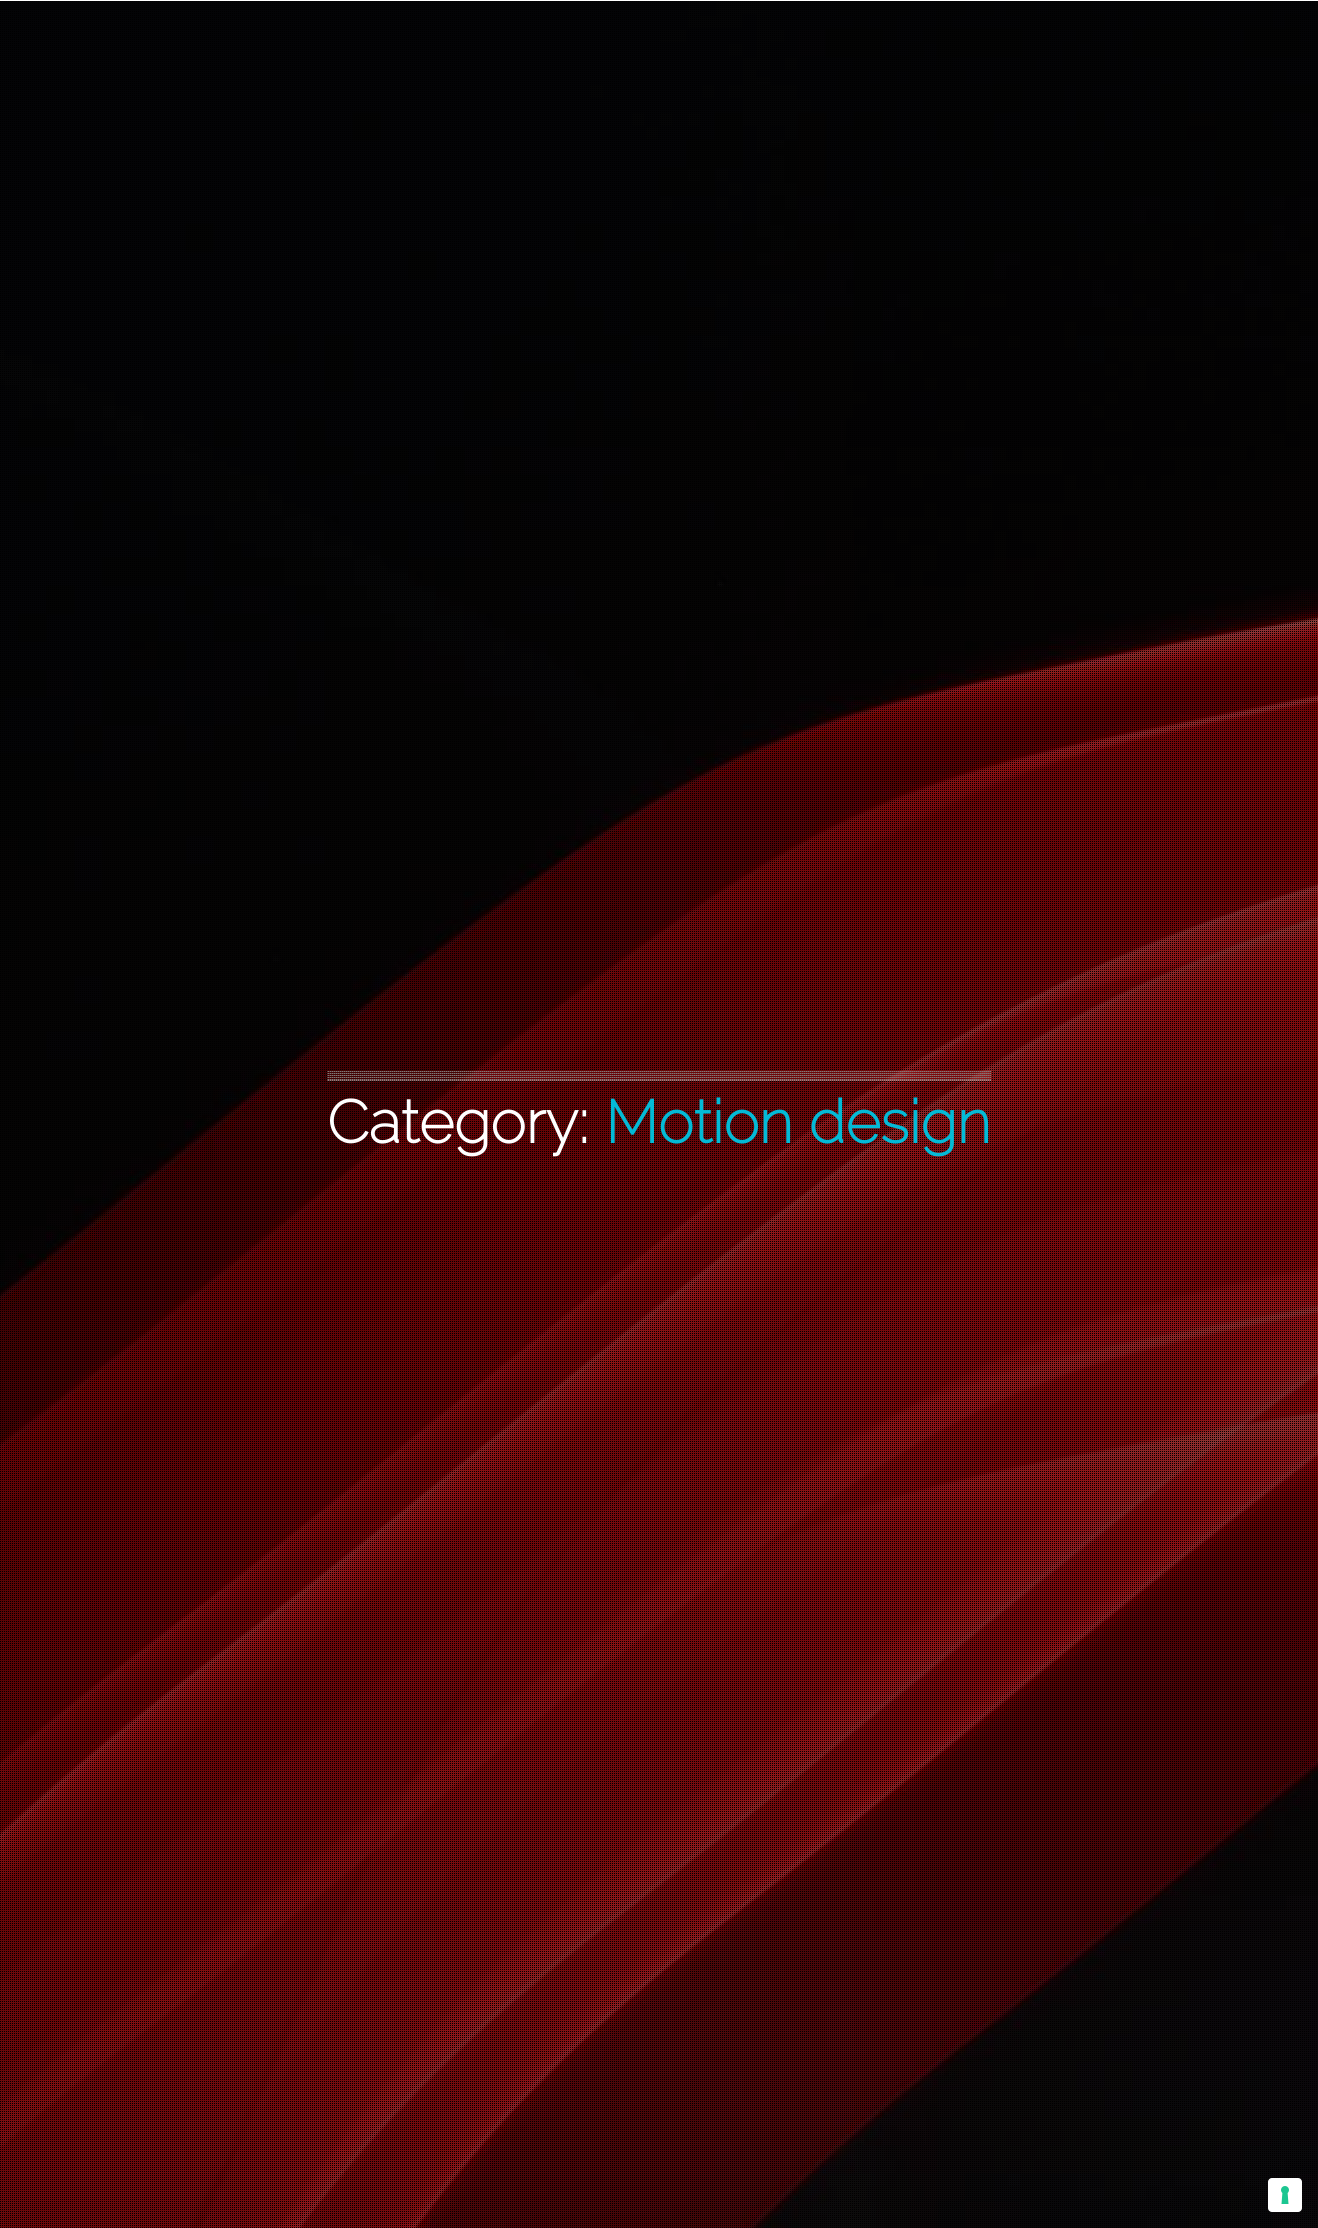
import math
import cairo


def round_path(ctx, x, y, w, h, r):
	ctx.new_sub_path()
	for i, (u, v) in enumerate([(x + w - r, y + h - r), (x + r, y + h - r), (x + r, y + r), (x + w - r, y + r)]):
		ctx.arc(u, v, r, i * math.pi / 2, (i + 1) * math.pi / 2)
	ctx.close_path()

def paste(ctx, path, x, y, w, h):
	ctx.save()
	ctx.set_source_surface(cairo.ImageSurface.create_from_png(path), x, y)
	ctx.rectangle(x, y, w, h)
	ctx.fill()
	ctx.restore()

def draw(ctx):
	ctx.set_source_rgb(1, 1, 1)
	ctx.paint()
	paste(ctx, 'media/1.png', 0, 1, 1318, 2227)
	paste(ctx, 'media/2.png', 0, 1, 1318, 2227)
	paste(ctx, 'media/3.png', 327, 1071, 664, 10)
	ctx.select_font_face('Raleway', cairo.FONT_SLANT_NORMAL, cairo.FONT_WEIGHT_BOLD)
	ctx.set_font_size(60)
	ctx.set_source_rgb(1, 1, 1)
	ctx.move_to(327, 1143)
	ctx.show_text('Category:')
	ctx.set_source_rgb(0.016, 0.729, 0.839)
	ctx.move_to(605, 1143)
	ctx.show_text('Motion design')
	ctx.set_source_rgb(1, 1, 1)
	round_path(ctx, 1268, 2178, 34, 34, 4)
	ctx.fill()
	paste(ctx, 'media/4.png', 1281, 2186, 8, 18)


surface = cairo.ImageSurface(cairo.FORMAT_RGB24, 1318, 2228)
ctx = cairo.Context(surface)
options = cairo.FontOptions()
options.set_hint_metrics(cairo.HINT_METRICS_OFF)
options.set_hint_style(cairo.HINT_STYLE_NONE)
ctx.set_font_options(options)
ctx.set_miter_limit(4)
draw(ctx)
surface.write_to_png('image.png')
